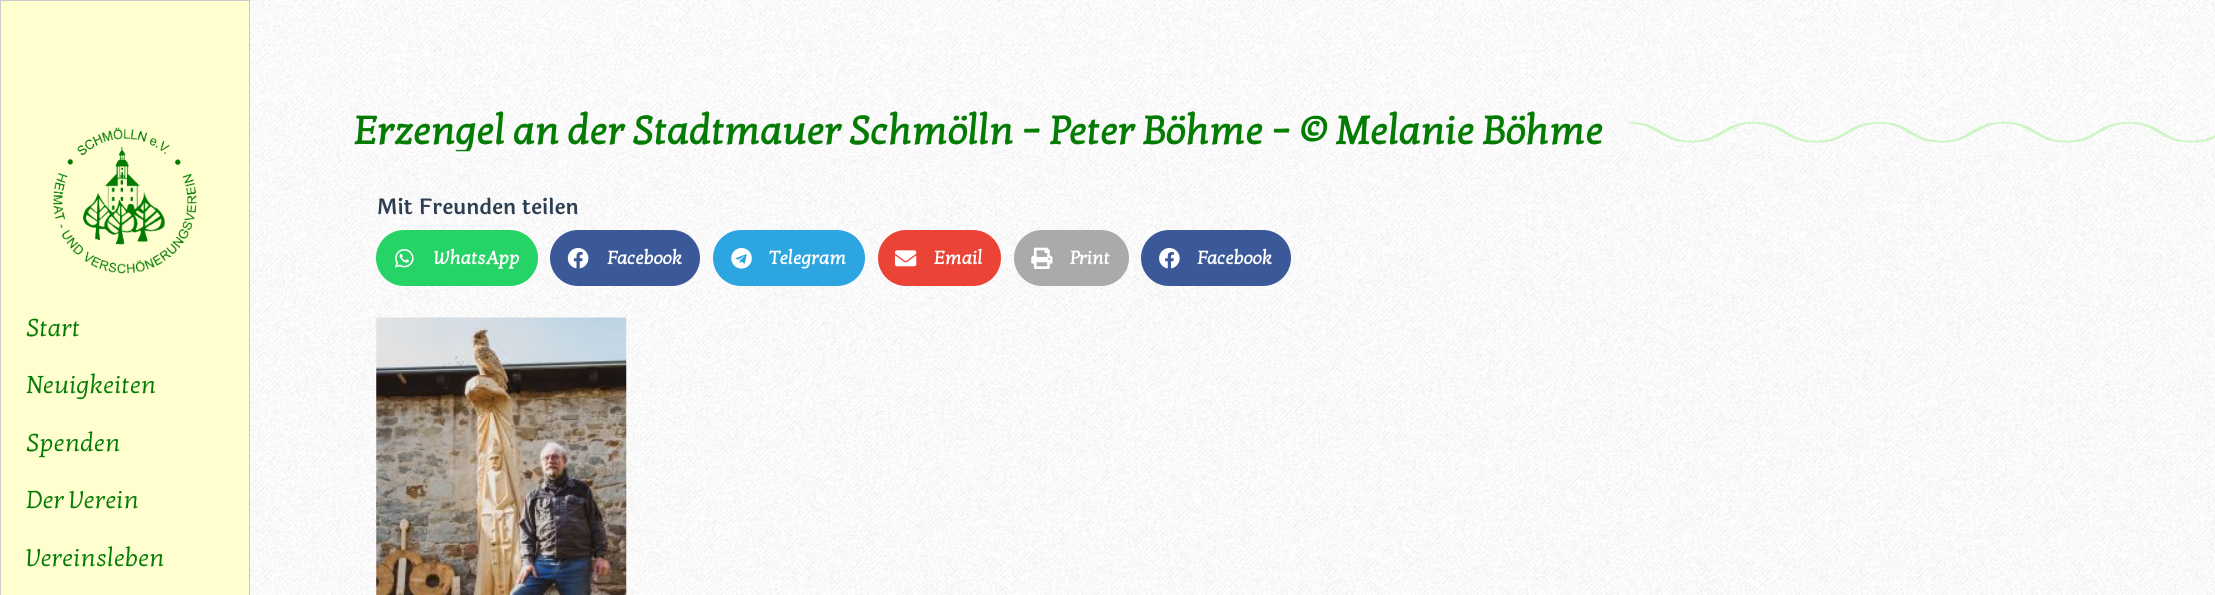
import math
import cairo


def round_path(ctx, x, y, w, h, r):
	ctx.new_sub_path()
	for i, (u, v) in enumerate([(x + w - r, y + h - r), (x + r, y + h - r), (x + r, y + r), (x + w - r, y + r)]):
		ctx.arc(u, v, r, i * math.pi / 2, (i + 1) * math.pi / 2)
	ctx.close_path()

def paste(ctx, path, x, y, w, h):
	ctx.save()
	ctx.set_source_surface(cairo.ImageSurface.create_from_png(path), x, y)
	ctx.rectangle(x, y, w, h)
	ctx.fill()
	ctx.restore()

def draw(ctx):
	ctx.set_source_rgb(1, 1, 1)
	ctx.paint()
	paste(ctx, 'media/1.png', 250, 0, 1965, 152)
	ctx.select_font_face('Kotta One', cairo.FONT_SLANT_NORMAL, cairo.FONT_WEIGHT_BOLD)
	ctx.set_font_size(40)
	ctx.set_source_rgb(0.016, 0.486, 0.016)
	ctx.move_to(354, 144)
	ctx.show_text('Erzengel an der Stadtmauer Schmölln – Peter Böhme – © Melanie Böhme')
	paste(ctx, 'media/2.png', 1629, 122, 586, 21)
	paste(ctx, 'media/3.png', 250, 151, 1965, 444)
	ctx.select_font_face('Laila SemiBold')
	ctx.set_font_size(21.25)
	ctx.set_source_rgb(0.173, 0.243, 0.314)
	ctx.move_to(377, 214)
	ctx.show_text('Mit Freunden teilen')
	ctx.set_source_rgb(0.145, 0.827, 0.4)
	round_path(ctx, 376, 230, 162, 56, 28)
	ctx.fill()
	paste(ctx, 'media/4.png', 395, 249, 19, 19)
	ctx.select_font_face('Kotta One', cairo.FONT_SLANT_NORMAL, cairo.FONT_WEIGHT_BOLD)
	ctx.set_font_size(18.75)
	ctx.set_source_rgb(1, 1, 1)
	ctx.move_to(433, 264)
	ctx.show_text('WhatsApp')
	ctx.set_source_rgb(0.231, 0.349, 0.596)
	round_path(ctx, 550, 230, 150, 56, 28)
	ctx.fill()
	paste(ctx, 'media/5.png', 567, 248, 22, 21)
	ctx.set_source_rgb(1, 1, 1)
	ctx.move_to(607, 264)
	ctx.show_text('Facebook')
	ctx.set_source_rgb(0.173, 0.647, 0.878)
	round_path(ctx, 713, 230, 152, 56, 28)
	ctx.fill()
	paste(ctx, 'media/6.png', 731, 248, 21, 21)
	ctx.set_source_rgb(1, 1, 1)
	ctx.move_to(769, 264)
	ctx.show_text('Telegram')
	ctx.set_source_rgb(0.918, 0.263, 0.208)
	round_path(ctx, 878, 230, 123, 56, 28)
	ctx.fill()
	paste(ctx, 'media/7.png', 895, 250, 22, 17)
	ctx.set_source_rgb(1, 1, 1)
	ctx.move_to(934, 264)
	ctx.show_text('Email')
	ctx.set_source_rgb(0.667, 0.667, 0.667)
	round_path(ctx, 1014, 230, 115, 56, 28)
	ctx.fill()
	paste(ctx, 'media/8.png', 1031, 247, 22, 22)
	ctx.set_source_rgb(1, 1, 1)
	ctx.move_to(1070, 264)
	ctx.show_text('Print')
	ctx.set_source_rgb(0.231, 0.349, 0.596)
	round_path(ctx, 1141, 230, 150, 56, 28)
	ctx.fill()
	paste(ctx, 'media/9.png', 1159, 248, 21, 21)
	ctx.set_source_rgb(1, 1, 1)
	ctx.move_to(1197, 264)
	ctx.show_text('Facebook')
	paste(ctx, 'media/10.png', 376, 317, 251, 278)
	ctx.set_source_rgb(0.996, 0.996, 0.808)
	ctx.rectangle(0.5, 0.5, 249, 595)
	ctx.fill_preserve()
	ctx.set_source_rgb(0.792, 0.792, 0.792)
	ctx.set_line_width(1)
	ctx.stroke()
	paste(ctx, 'media/11.png', 53, 127, 144, 147)
	ctx.select_font_face('Kotta One')
	ctx.set_font_size(25)
	ctx.set_source_rgb(0.016, 0.486, 0.016)
	for x, y, s in [
		(26, 336, 'Start'),
		(26, 393, 'Neuigkeiten'),
		(26, 451, 'Spenden'),
		(26, 508, 'Der Verein'),
		(26, 566, 'Vereinsleben'),
	]:
		ctx.move_to(x, y)
		ctx.show_text(s)


surface = cairo.ImageSurface(cairo.FORMAT_RGB24, 2215, 595)
ctx = cairo.Context(surface)
options = cairo.FontOptions()
options.set_hint_metrics(cairo.HINT_METRICS_OFF)
options.set_hint_style(cairo.HINT_STYLE_NONE)
ctx.set_font_options(options)
ctx.set_miter_limit(4)
draw(ctx)
surface.write_to_png('image.png')
